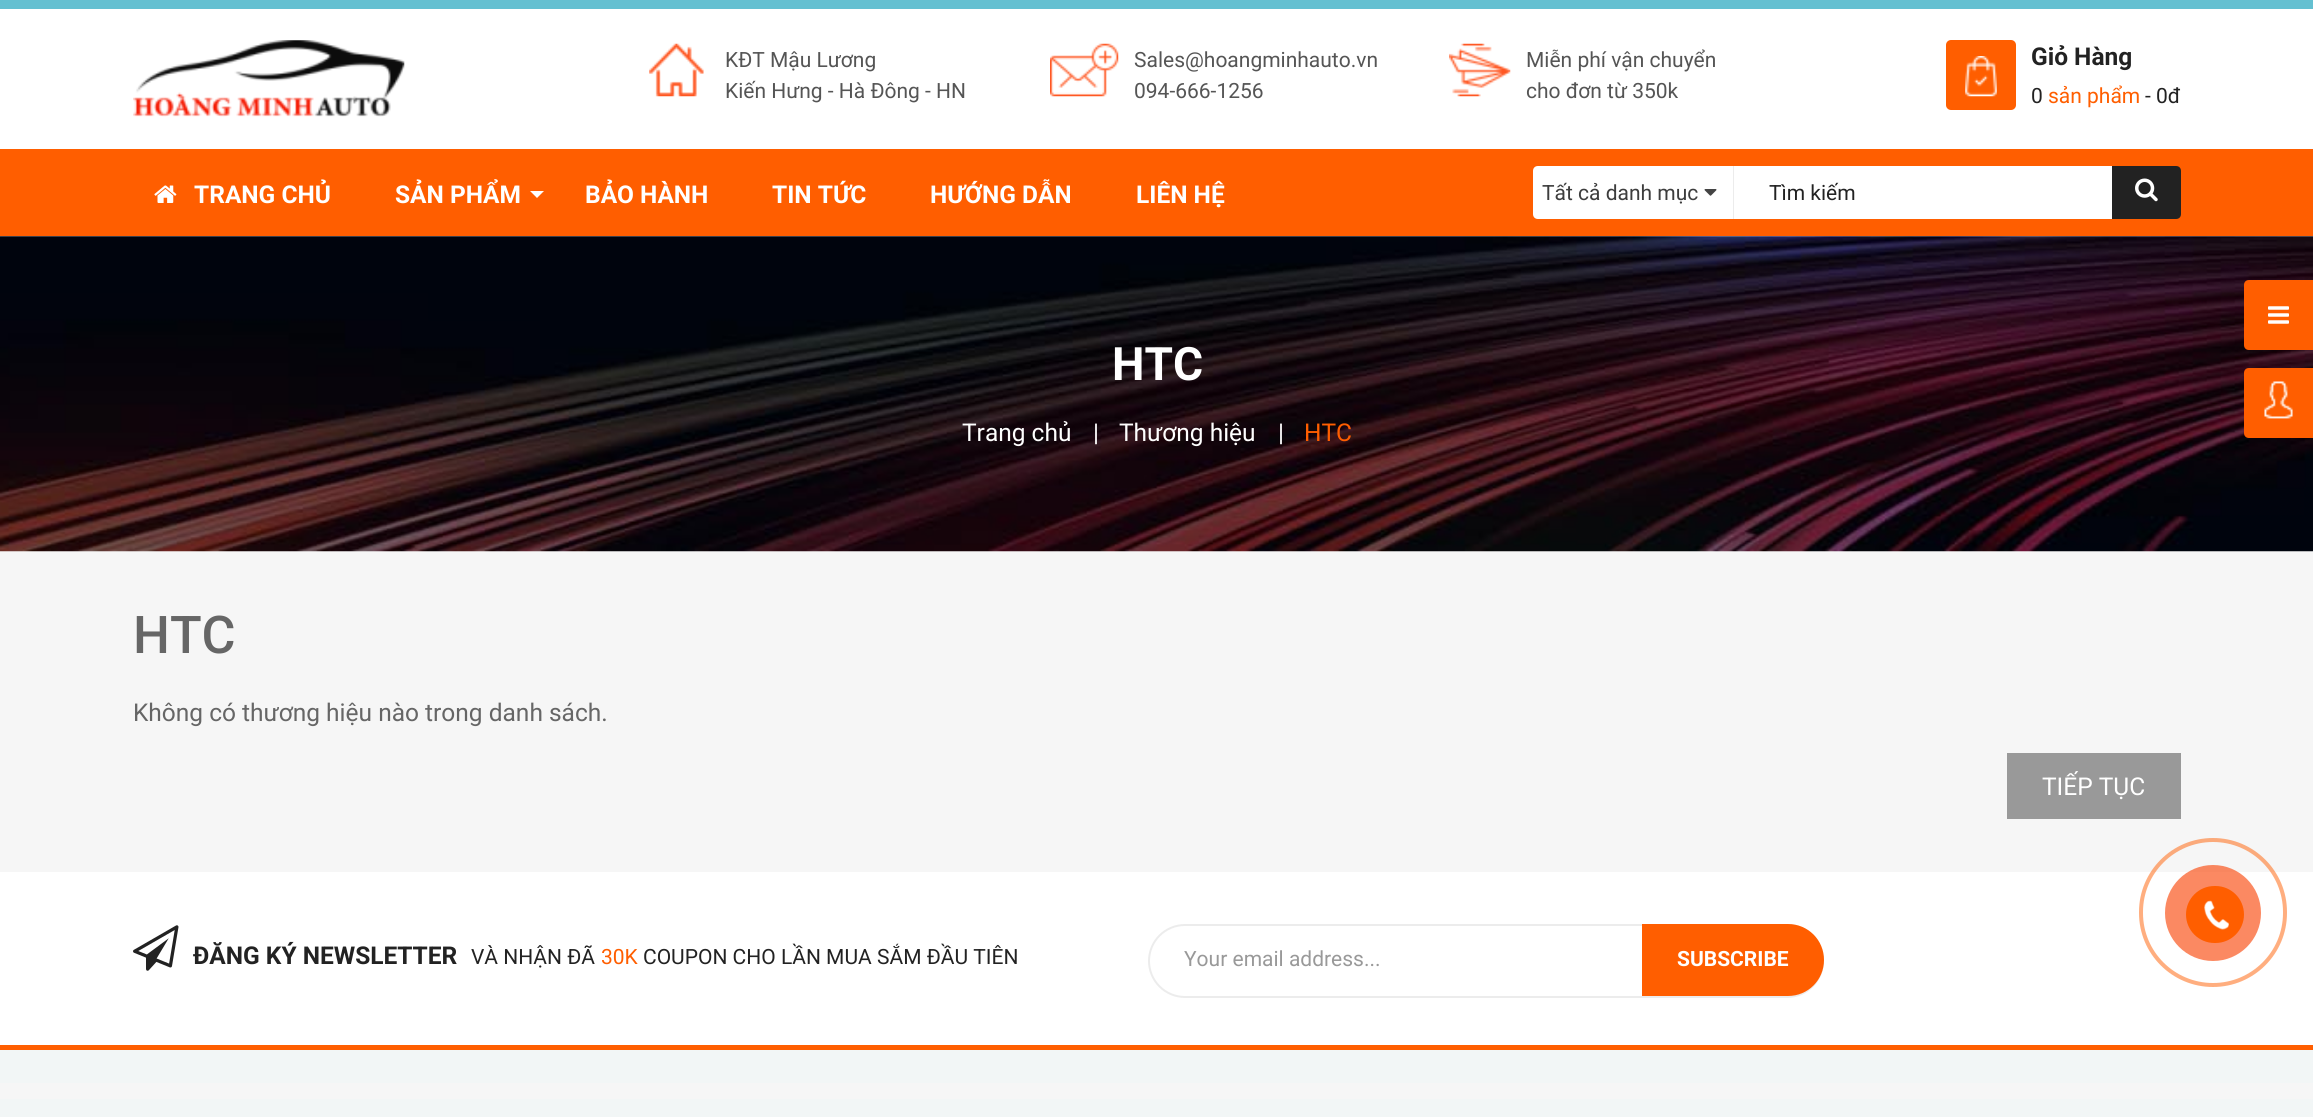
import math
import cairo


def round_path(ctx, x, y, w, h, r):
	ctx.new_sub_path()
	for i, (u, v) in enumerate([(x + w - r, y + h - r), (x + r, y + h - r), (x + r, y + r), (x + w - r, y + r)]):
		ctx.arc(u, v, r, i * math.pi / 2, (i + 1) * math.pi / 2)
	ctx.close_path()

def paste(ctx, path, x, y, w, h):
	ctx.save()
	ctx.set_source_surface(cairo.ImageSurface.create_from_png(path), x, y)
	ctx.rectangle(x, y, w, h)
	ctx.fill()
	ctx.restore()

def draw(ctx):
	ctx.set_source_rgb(0.961, 0.961, 0.961)
	ctx.paint()
	ctx.set_source_rgb(1, 1, 1)
	ctx.rectangle(0, 9, 2313, 140)
	ctx.fill()
	ctx.set_source_rgb(0.392, 0.753, 0.82)
	ctx.rectangle(0, 0, 2313, 9)
	ctx.fill()
	paste(ctx, 'media/1.png', 133, 40, 272, 77)
	paste(ctx, 'media/2.png', 649, 43, 55, 54)
	ctx.select_font_face('Roboto')
	ctx.set_font_size(21)
	ctx.set_source_rgb(0.333, 0.333, 0.333)
	ctx.move_to(725, 67)
	ctx.show_text('KĐT Mậu Lương')
	ctx.move_to(725, 98)
	ctx.show_text('Kiến Hưng - Hà Đông - HN')
	paste(ctx, 'media/3.png', 1050, 43, 69, 54)
	ctx.move_to(1134, 67)
	ctx.show_text('Sales@hoangminhauto.vn')
	ctx.move_to(1134, 98)
	ctx.show_text('094-666-1256')
	paste(ctx, 'media/4.png', 1449, 43, 62, 54)
	ctx.move_to(1526, 67)
	ctx.show_text('Miễn phí vận chuyển')
	ctx.move_to(1526, 98)
	ctx.show_text('cho đơn từ 350k')
	ctx.set_source_rgb(1, 0.369, 0)
	round_path(ctx, 1946, 40, 70, 70, 5)
	ctx.fill()
	paste(ctx, 'media/5.png', 1965, 56, 32, 41)
	ctx.select_font_face('Roboto', cairo.FONT_SLANT_NORMAL, cairo.FONT_WEIGHT_BOLD)
	ctx.set_font_size(24.5)
	ctx.set_source_rgb(0.133, 0.133, 0.133)
	ctx.move_to(2031, 65)
	ctx.show_text('Giỏ Hàng')
	ctx.select_font_face('Roboto')
	ctx.set_font_size(21)
	ctx.move_to(2031, 103)
	ctx.show_text('0')
	ctx.set_source_rgb(1, 0.369, 0)
	ctx.move_to(2048, 103)
	ctx.show_text('sản phẩm')
	ctx.set_source_rgb(0.133, 0.133, 0.133)
	ctx.move_to(2145, 103)
	ctx.show_text('- 0đ')
	ctx.set_source_rgb(1, 0.369, 0)
	ctx.rectangle(0, 149, 2313, 87)
	ctx.fill()
	paste(ctx, 'media/6.png', 154, 185, 23, 18)
	ctx.select_font_face('Roboto', cairo.FONT_SLANT_NORMAL, cairo.FONT_WEIGHT_BOLD)
	ctx.set_font_size(24.5)
	ctx.set_source_rgb(1, 1, 1)
	ctx.move_to(194, 203)
	ctx.show_text('TRANG CHỦ')
	ctx.move_to(395, 203)
	ctx.show_text('SẢN PHẨM')
	ctx.new_path()
	ctx.move_to(530, 191)
	ctx.line_to(544, 191)
	ctx.line_to(537, 198)
	ctx.close_path()
	ctx.fill()
	for x, y, s in [
		(585, 203, 'BẢO HÀNH'),
		(772, 203, 'TIN TỨC'),
		(930, 203, 'HƯỚNG DẪN'),
		(1136, 203, 'LIÊN HỆ'),
	]:
		ctx.move_to(x, y)
		ctx.show_text(s)
	ctx.new_path()
	ctx.move_to(1538, 166)
	ctx.line_to(1734, 166)
	ctx.line_to(1734, 219)
	ctx.line_to(1538, 219)
	ctx.curve_to(1535, 219, 1533, 217, 1533, 214)
	ctx.line_to(1533, 171)
	ctx.curve_to(1533, 168, 1535, 166, 1538, 166)
	ctx.close_path()
	ctx.fill()
	ctx.set_source_rgb(0.922, 0.922, 0.922)
	ctx.rectangle(1733, 166, 1, 53)
	ctx.fill()
	ctx.select_font_face('Roboto')
	ctx.set_font_size(21)
	ctx.set_source_rgb(0.239, 0.239, 0.239)
	ctx.move_to(1542, 200)
	ctx.show_text('Tất cả danh mục')
	paste(ctx, 'media/7.png', 1704, 189, 13, 7)
	ctx.set_source_rgb(1, 1, 1)
	ctx.rectangle(1734, 166, 378, 53)
	ctx.fill()
	ctx.set_source_rgb(0.133, 0.133, 0.133)
	ctx.move_to(1769, 200)
	ctx.show_text('Tìm kiếm')
	ctx.new_path()
	ctx.move_to(2112, 166)
	ctx.line_to(2176, 166)
	ctx.curve_to(2179, 166, 2181, 168, 2181, 171)
	ctx.line_to(2181, 214)
	ctx.curve_to(2181, 217, 2179, 219, 2176, 219)
	ctx.line_to(2112, 219)
	ctx.close_path()
	ctx.fill()
	paste(ctx, 'media/8.png', 2135, 178, 23, 24)
	paste(ctx, 'media/11.png', 0, 236, 2313, 316)
	ctx.set_source_rgb(1, 0.369, 0)
	ctx.new_path()
	ctx.move_to(2249, 280)
	ctx.line_to(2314, 280)
	ctx.line_to(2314, 350)
	ctx.line_to(2249, 350)
	ctx.curve_to(2246, 350, 2244, 348, 2244, 345)
	ctx.line_to(2244, 285)
	ctx.curve_to(2244, 282, 2246, 280, 2249, 280)
	ctx.close_path()
	ctx.fill()
	paste(ctx, 'media/9.png', 2268, 306, 21, 18)
	ctx.new_path()
	ctx.move_to(2249, 368)
	ctx.line_to(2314, 368)
	ctx.line_to(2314, 438)
	ctx.line_to(2249, 438)
	ctx.curve_to(2246, 438, 2244, 436, 2244, 433)
	ctx.line_to(2244, 373)
	ctx.curve_to(2244, 370, 2246, 368, 2249, 368)
	ctx.close_path()
	ctx.fill()
	paste(ctx, 'media/10.png', 2264, 381, 29, 38)
	ctx.select_font_face('Roboto', cairo.FONT_SLANT_NORMAL, cairo.FONT_WEIGHT_BOLD)
	ctx.set_font_size(46)
	ctx.set_source_rgb(1, 1, 1)
	ctx.move_to(1112, 380)
	ctx.show_text('HTC')
	ctx.select_font_face('Roboto')
	ctx.set_font_size(24.5)
	for x, y, s in [
		(962, 441, 'Trang chủ'),
		(1093, 441, '|'),
		(1119, 441, 'Thương hiệu'),
		(1278, 441, '|'),
	]:
		ctx.move_to(x, y)
		ctx.show_text(s)
	ctx.set_source_rgb(1, 0.369, 0)
	ctx.move_to(1304, 441)
	ctx.show_text('HTC')
	ctx.select_font_face('Roboto Medium')
	ctx.set_font_size(52)
	ctx.set_source_rgb(0.4, 0.4, 0.4)
	ctx.move_to(133, 653)
	ctx.show_text('HTC')
	ctx.select_font_face('Roboto')
	ctx.set_font_size(24.5)
	ctx.move_to(133, 721)
	ctx.show_text('Không có thương hiệu nào trong danh sách.')
	ctx.set_source_rgb(0.6, 0.6, 0.6)
	ctx.rectangle(2007, 753, 174, 66)
	ctx.fill()
	ctx.set_source_rgb(1, 1, 1)
	ctx.move_to(2042, 795)
	ctx.show_text('TIẾP TỤC')
	ctx.rectangle(0, 872, 2313, 173)
	ctx.fill()
	paste(ctx, 'media/12.png', 133, 925, 46, 46)
	ctx.select_font_face('Roboto', cairo.FONT_SLANT_NORMAL, cairo.FONT_WEIGHT_BOLD)
	ctx.set_source_rgb(0.133, 0.133, 0.133)
	ctx.move_to(193, 964)
	ctx.show_text('ĐĂNG KÝ NEWSLETTER')
	ctx.select_font_face('Roboto')
	ctx.set_font_size(21)
	ctx.move_to(471, 964)
	ctx.show_text('VÀ NHẬN ĐÃ')
	ctx.set_source_rgb(1, 0.369, 0)
	ctx.move_to(601, 964)
	ctx.show_text('30K')
	ctx.set_source_rgb(0.133, 0.133, 0.133)
	ctx.move_to(643, 964)
	ctx.show_text('COUPON CHO LẦN MUA SẮM ĐẦU TIÊN')
	round_path(ctx, 1149, 925, 674, 72, 36)
	ctx.set_source_rgb(0.922, 0.922, 0.922)
	ctx.stroke()
	ctx.set_source_rgb(0.6, 0.6, 0.6)
	ctx.move_to(1184, 966)
	ctx.show_text('Your email address...')
	ctx.set_source_rgb(1, 0.369, 0)
	ctx.new_path()
	ctx.move_to(1642, 924)
	ctx.line_to(1788, 924)
	ctx.curve_to(1808, 924, 1824, 940, 1824, 960)
	ctx.curve_to(1824, 980, 1808, 996, 1788, 996)
	ctx.line_to(1642, 996)
	ctx.close_path()
	ctx.fill()
	ctx.select_font_face('Roboto', cairo.FONT_SLANT_NORMAL, cairo.FONT_WEIGHT_BOLD)
	ctx.set_source_rgb(1, 1, 1)
	ctx.move_to(1677, 966)
	ctx.show_text('SUBSCRIBE')
	ctx.set_source_rgb(0.949, 0.961, 0.961)
	ctx.rectangle(0, 1050, 2313, 33)
	ctx.fill()
	ctx.set_source_rgb(1, 0.369, 0)
	ctx.rectangle(0, 1045, 2313, 5)
	ctx.fill()
	ctx.set_source_rgb(0.949, 0.961, 0.961)
	ctx.rectangle(0, 1099, 2313, 18)
	ctx.fill()
	round_path(ctx, 2141, 840, 144, 145, 72)
	ctx.set_source_rgba(1, 0.369, 0, 0.5)
	ctx.set_line_width(4)
	ctx.stroke()
	ctx.set_source_rgba(0.98, 0.341, 0.125, 0.7)
	ctx.arc(2213, 913, 48, 0, 2 * math.pi)
	ctx.fill()
	ctx.set_source_rgb(1, 0.369, 0)
	round_path(ctx, 2186, 886, 58, 57, 28.5)
	ctx.fill()
	paste(ctx, 'media/13.png', 2204, 900, 25, 30)


surface = cairo.ImageSurface(cairo.FORMAT_RGB24, 2313, 1117)
ctx = cairo.Context(surface)
options = cairo.FontOptions()
options.set_hint_metrics(cairo.HINT_METRICS_OFF)
options.set_hint_style(cairo.HINT_STYLE_NONE)
ctx.set_font_options(options)
ctx.set_miter_limit(4)
draw(ctx)
surface.write_to_png('image.png')
